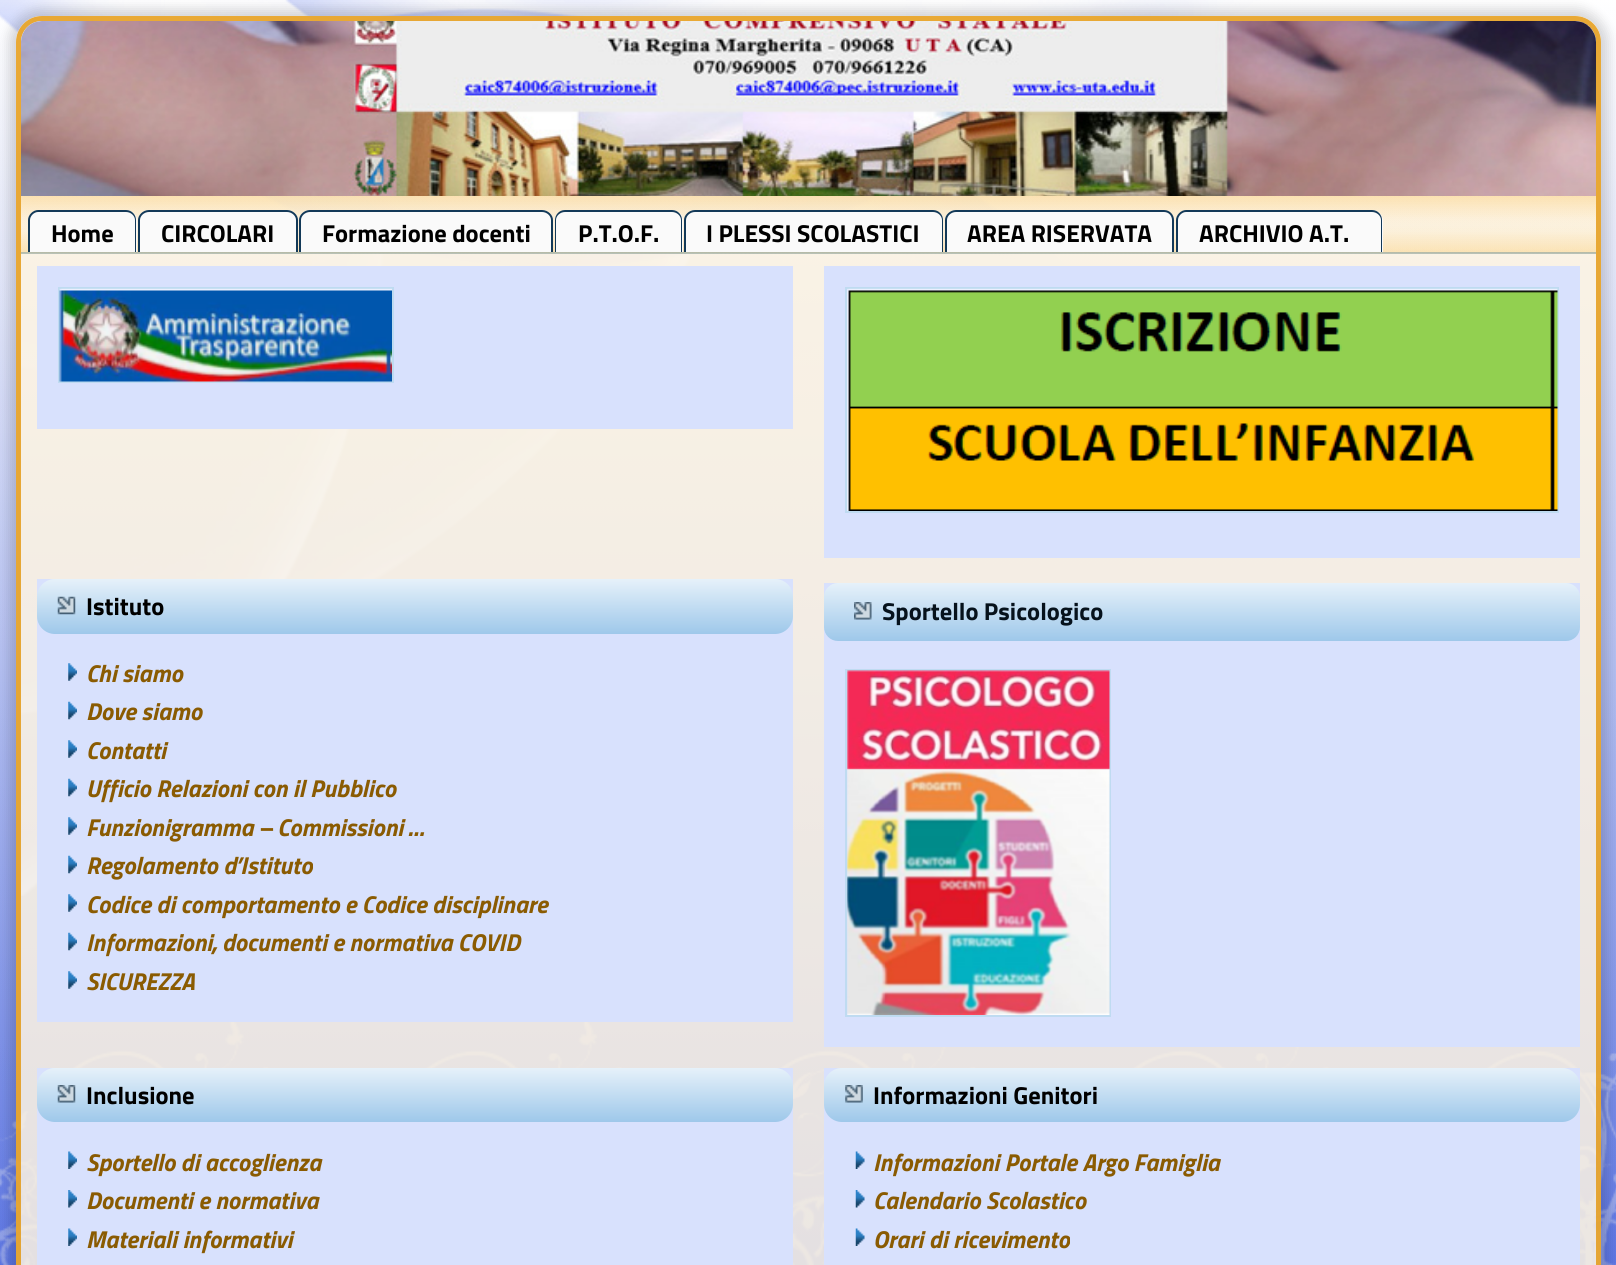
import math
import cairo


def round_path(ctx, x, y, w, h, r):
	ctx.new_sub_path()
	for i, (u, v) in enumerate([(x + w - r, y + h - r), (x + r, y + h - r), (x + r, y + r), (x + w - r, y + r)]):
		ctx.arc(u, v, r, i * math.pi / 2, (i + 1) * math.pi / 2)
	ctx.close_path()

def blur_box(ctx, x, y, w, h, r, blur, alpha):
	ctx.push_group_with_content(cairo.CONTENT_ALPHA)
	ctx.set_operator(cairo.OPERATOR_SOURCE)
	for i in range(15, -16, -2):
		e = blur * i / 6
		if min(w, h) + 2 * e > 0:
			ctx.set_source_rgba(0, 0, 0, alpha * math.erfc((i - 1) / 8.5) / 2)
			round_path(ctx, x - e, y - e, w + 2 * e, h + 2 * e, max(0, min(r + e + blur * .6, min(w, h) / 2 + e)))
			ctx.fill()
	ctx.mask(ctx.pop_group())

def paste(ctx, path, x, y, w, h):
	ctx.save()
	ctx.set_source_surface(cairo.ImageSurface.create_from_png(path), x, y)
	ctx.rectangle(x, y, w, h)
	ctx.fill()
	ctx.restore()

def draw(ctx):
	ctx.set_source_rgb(1, 1, 1)
	ctx.paint()
	paste(ctx, 'media/1.png', 0, 0, 1616, 1265)
	ctx.save()
	ctx.set_fill_rule(cairo.FILL_RULE_EVEN_ODD)
	ctx.new_path()
	ctx.move_to(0, 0)
	ctx.line_to(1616, 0)
	ctx.line_to(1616, 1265)
	ctx.line_to(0, 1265)
	ctx.close_path()
	ctx.move_to(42, 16)
	ctx.line_to(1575, 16)
	ctx.curve_to(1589.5, 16, 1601, 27.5, 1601, 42)
	ctx.line_to(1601, 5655)
	ctx.curve_to(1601, 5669.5, 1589.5, 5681, 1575, 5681)
	ctx.line_to(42, 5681)
	ctx.curve_to(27.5, 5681, 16, 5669.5, 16, 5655)
	ctx.line_to(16, 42)
	ctx.curve_to(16, 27.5, 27.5, 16, 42, 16)
	ctx.close_path()
	ctx.clip()
	ctx.set_source_rgb(0, 0, 0)
	blur_box(ctx, 9, 9, 1599, 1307, 33, 6, 0.16)
	ctx.restore()
	ctx.set_source_rgba(1, 1, 1, 0.8)
	round_path(ctx, 16, 16, 1585, 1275, 26)
	ctx.fill()
	round_path(ctx, 18.5, 18.5, 1580, 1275, 23.5)
	ctx.set_source_rgba(0.89, 0.58, 0.012, 0.8)
	ctx.set_line_width(5)
	ctx.stroke()
	paste(ctx, 'media/2.png', 21, 21, 1575, 175)
	paste(ctx, 'media/3.png', 21, 196, 1575, 58)
	ctx.set_source_rgba(0.329, 0.62, 0.859, 0.4)
	ctx.rectangle(21, 252, 1575, 2)
	ctx.fill()
	ctx.set_source_rgb(0.98, 0.98, 0.98)
	ctx.new_path()
	ctx.move_to(39, 210)
	ctx.line_to(126, 210)
	ctx.curve_to(132, 210, 137, 215, 137, 221)
	ctx.line_to(137, 252)
	ctx.line_to(28, 252)
	ctx.line_to(28, 221)
	ctx.curve_to(28, 215, 33, 210, 39, 210)
	ctx.close_path()
	ctx.fill()
	ctx.set_source_rgb(0.075, 0.224, 0.345)
	ctx.set_fill_rule(cairo.FILL_RULE_EVEN_ODD)
	ctx.new_path()
	ctx.move_to(38, 210)
	ctx.line_to(126, 210)
	ctx.curve_to(132, 210, 136, 215, 136, 220)
	ctx.line_to(136, 252)
	ctx.line_to(28, 252)
	ctx.line_to(28, 220)
	ctx.curve_to(28, 215, 33, 210, 38, 210)
	ctx.close_path()
	ctx.move_to(38, 212)
	ctx.line_to(126, 212)
	ctx.curve_to(131, 212, 135, 216, 135, 220)
	ctx.line_to(135, 252)
	ctx.line_to(30, 252)
	ctx.line_to(30, 220)
	ctx.curve_to(30, 216, 34, 212, 38, 212)
	ctx.close_path()
	ctx.fill()
	ctx.select_font_face('Titillium Web', cairo.FONT_SLANT_NORMAL, cairo.FONT_WEIGHT_BOLD)
	ctx.set_font_size(24.5)
	ctx.set_source_rgb(0, 0, 0)
	ctx.move_to(51, 242)
	ctx.show_text('Home')
	ctx.set_source_rgb(0.98, 0.98, 0.98)
	ctx.new_path()
	ctx.move_to(149, 210)
	ctx.line_to(287, 210)
	ctx.curve_to(293, 210, 298, 215, 298, 221)
	ctx.line_to(298, 252)
	ctx.line_to(138, 252)
	ctx.line_to(138, 221)
	ctx.curve_to(138, 215, 143, 210, 149, 210)
	ctx.close_path()
	ctx.fill()
	ctx.set_source_rgb(0.075, 0.224, 0.345)
	ctx.new_path()
	ctx.move_to(149, 210)
	ctx.line_to(287, 210)
	ctx.curve_to(293, 210, 298, 215, 298, 220)
	ctx.line_to(298, 252)
	ctx.line_to(138, 252)
	ctx.line_to(138, 220)
	ctx.curve_to(138, 215, 143, 210, 149, 210)
	ctx.close_path()
	ctx.move_to(149, 212)
	ctx.line_to(287, 212)
	ctx.curve_to(292, 212, 296, 216, 296, 220)
	ctx.line_to(296, 252)
	ctx.line_to(140, 252)
	ctx.line_to(140, 220)
	ctx.curve_to(140, 216, 144, 212, 149, 212)
	ctx.close_path()
	ctx.fill()
	ctx.set_source_rgb(0, 0, 0)
	ctx.move_to(161, 242)
	ctx.show_text('CIRCOLARI')
	ctx.set_source_rgb(0.98, 0.98, 0.98)
	ctx.new_path()
	ctx.move_to(310, 210)
	ctx.line_to(542, 210)
	ctx.curve_to(548, 210, 553, 215, 553, 221)
	ctx.line_to(553, 252)
	ctx.line_to(299, 252)
	ctx.line_to(299, 221)
	ctx.curve_to(299, 215, 304, 210, 310, 210)
	ctx.close_path()
	ctx.fill()
	ctx.set_source_rgb(0.075, 0.224, 0.345)
	ctx.new_path()
	ctx.move_to(310, 210)
	ctx.line_to(542, 210)
	ctx.curve_to(548, 210, 553, 215, 553, 220)
	ctx.line_to(553, 252)
	ctx.line_to(299, 252)
	ctx.line_to(299, 220)
	ctx.curve_to(299, 215, 304, 210, 310, 210)
	ctx.close_path()
	ctx.move_to(310, 212)
	ctx.line_to(542, 212)
	ctx.curve_to(547, 212, 551, 216, 551, 220)
	ctx.line_to(551, 252)
	ctx.line_to(301, 252)
	ctx.line_to(301, 220)
	ctx.curve_to(301, 216, 305, 212, 310, 212)
	ctx.close_path()
	ctx.fill()
	ctx.set_source_rgb(0, 0, 0)
	ctx.move_to(322, 242)
	ctx.show_text('Formazione docenti')
	ctx.set_source_rgb(0.98, 0.98, 0.98)
	ctx.new_path()
	ctx.move_to(566, 210)
	ctx.line_to(672, 210)
	ctx.curve_to(678, 210, 683, 215, 683, 221)
	ctx.line_to(683, 252)
	ctx.line_to(555, 252)
	ctx.line_to(555, 221)
	ctx.curve_to(555, 215, 560, 210, 566, 210)
	ctx.close_path()
	ctx.fill()
	ctx.set_source_rgb(0.075, 0.224, 0.345)
	ctx.new_path()
	ctx.move_to(565, 210)
	ctx.line_to(672, 210)
	ctx.curve_to(678, 210, 682, 215, 682, 220)
	ctx.line_to(682, 252)
	ctx.line_to(555, 252)
	ctx.line_to(555, 220)
	ctx.curve_to(555, 215, 559, 210, 565, 210)
	ctx.close_path()
	ctx.move_to(565, 212)
	ctx.line_to(672, 212)
	ctx.curve_to(677, 212, 681, 216, 681, 220)
	ctx.line_to(681, 252)
	ctx.line_to(556, 252)
	ctx.line_to(556, 220)
	ctx.curve_to(556, 216, 560, 212, 565, 212)
	ctx.close_path()
	ctx.fill()
	ctx.set_source_rgb(0, 0, 0)
	ctx.move_to(578, 242)
	ctx.show_text('P.T.O.F.')
	ctx.set_source_rgb(0.98, 0.98, 0.98)
	ctx.new_path()
	ctx.move_to(695, 210)
	ctx.line_to(932, 210)
	ctx.curve_to(938, 210, 943, 215, 943, 221)
	ctx.line_to(943, 252)
	ctx.line_to(684, 252)
	ctx.line_to(684, 221)
	ctx.curve_to(684, 215, 689, 210, 695, 210)
	ctx.close_path()
	ctx.fill()
	ctx.set_source_rgb(0.075, 0.224, 0.345)
	ctx.new_path()
	ctx.move_to(695, 210)
	ctx.line_to(933, 210)
	ctx.curve_to(939, 210, 943, 215, 943, 220)
	ctx.line_to(943, 252)
	ctx.line_to(684, 252)
	ctx.line_to(684, 220)
	ctx.curve_to(684, 215, 689, 210, 695, 210)
	ctx.close_path()
	ctx.move_to(695, 212)
	ctx.line_to(933, 212)
	ctx.curve_to(938, 212, 942, 216, 942, 220)
	ctx.line_to(942, 252)
	ctx.line_to(686, 252)
	ctx.line_to(686, 220)
	ctx.curve_to(686, 216, 690, 212, 695, 212)
	ctx.close_path()
	ctx.fill()
	ctx.set_source_rgb(0, 0, 0)
	ctx.move_to(706, 242)
	ctx.show_text('I PLESSI SCOLASTICI')
	ctx.set_source_rgb(0.98, 0.98, 0.98)
	ctx.new_path()
	ctx.move_to(956, 210)
	ctx.line_to(1163, 210)
	ctx.curve_to(1169, 210, 1174, 215, 1174, 221)
	ctx.line_to(1174, 252)
	ctx.line_to(945, 252)
	ctx.line_to(945, 221)
	ctx.curve_to(945, 215, 950, 210, 956, 210)
	ctx.close_path()
	ctx.fill()
	ctx.set_source_rgb(0.075, 0.224, 0.345)
	ctx.new_path()
	ctx.move_to(956, 210)
	ctx.line_to(1164, 210)
	ctx.curve_to(1170, 210, 1174, 215, 1174, 220)
	ctx.line_to(1174, 252)
	ctx.line_to(945, 252)
	ctx.line_to(945, 220)
	ctx.curve_to(945, 215, 950, 210, 956, 210)
	ctx.close_path()
	ctx.move_to(956, 212)
	ctx.line_to(1164, 212)
	ctx.curve_to(1169, 212, 1172, 216, 1172, 220)
	ctx.line_to(1172, 252)
	ctx.line_to(947, 252)
	ctx.line_to(947, 220)
	ctx.curve_to(947, 216, 951, 212, 956, 212)
	ctx.close_path()
	ctx.fill()
	ctx.set_source_rgb(0, 0, 0)
	ctx.move_to(967, 242)
	ctx.show_text('AREA RISERVATA')
	ctx.set_source_rgb(0.98, 0.98, 0.98)
	ctx.new_path()
	ctx.move_to(1187, 210)
	ctx.line_to(1372, 210)
	ctx.curve_to(1378, 210, 1383, 215, 1383, 221)
	ctx.line_to(1383, 252)
	ctx.line_to(1176, 252)
	ctx.line_to(1176, 221)
	ctx.curve_to(1176, 215, 1181, 210, 1187, 210)
	ctx.close_path()
	ctx.fill()
	ctx.set_source_rgb(0.075, 0.224, 0.345)
	ctx.new_path()
	ctx.move_to(1186, 210)
	ctx.line_to(1372, 210)
	ctx.curve_to(1378, 210, 1382, 215, 1382, 220)
	ctx.line_to(1382, 252)
	ctx.line_to(1176, 252)
	ctx.line_to(1176, 220)
	ctx.curve_to(1176, 215, 1181, 210, 1186, 210)
	ctx.close_path()
	ctx.move_to(1186, 212)
	ctx.line_to(1372, 212)
	ctx.curve_to(1377, 212, 1381, 216, 1381, 220)
	ctx.line_to(1381, 252)
	ctx.line_to(1178, 252)
	ctx.line_to(1178, 220)
	ctx.curve_to(1178, 216, 1182, 212, 1186, 212)
	ctx.close_path()
	ctx.fill()
	ctx.set_source_rgb(0, 0, 0)
	ctx.move_to(1199, 242)
	ctx.show_text('ARCHIVIO A.T.')
	ctx.set_source_rgba(0.992, 0.827, 0.525, 0.2)
	ctx.rectangle(21, 254, 1575, 1011)
	ctx.fill()
	paste(ctx, 'media/4.png', 21, 254, 669, 642)
	ctx.set_source_rgb(0.847, 0.882, 0.992)
	ctx.rectangle(37, 266, 756, 163)
	ctx.fill()
	ctx.rectangle(59, 288, 334, 94)
	ctx.set_source_rgb(0.749, 0.859, 0.945)
	ctx.set_line_width(2)
	ctx.stroke()
	paste(ctx, 'media/5.png', 59, 288, 333, 94)
	ctx.set_source_rgb(0.847, 0.882, 0.992)
	ctx.rectangle(824, 266, 756, 292)
	ctx.fill()
	ctx.rectangle(846, 288, 712, 224)
	ctx.set_source_rgb(0.749, 0.859, 0.945)
	ctx.stroke()
	paste(ctx, 'media/6.png', 847, 288, 711, 223)
	ctx.set_source_rgb(0.847, 0.882, 0.992)
	ctx.rectangle(37, 579, 756, 443)
	ctx.fill()
	gradient = cairo.LinearGradient(415, 579, 415, 634)
	gradient.add_color_stop_rgba(0, 0.902, 0.945, 0.98, 1)
	gradient.add_color_stop_rgba(1, 0.62, 0.784, 0.918, 1)
	ctx.set_source(gradient)
	round_path(ctx, 37, 579, 756, 55, 18)
	ctx.fill()
	paste(ctx, 'media/7.png', 57, 596, 19, 19)
	ctx.set_source_rgb(0, 0, 0)
	ctx.move_to(86, 615)
	ctx.show_text('Istituto')
	paste(ctx, 'media/8.png', 68, 663, 9, 18)
	ctx.select_font_face('Titillium Web', cairo.FONT_SLANT_ITALIC, cairo.FONT_WEIGHT_BOLD)
	ctx.set_source_rgb(0.541, 0.357, 0.008)
	ctx.move_to(86, 682)
	ctx.show_text('Chi siamo')
	paste(ctx, 'media/9.png', 68, 701, 9, 19)
	ctx.move_to(86, 720)
	ctx.show_text('Dove siamo')
	paste(ctx, 'media/8.png', 68, 740, 9, 18)
	ctx.move_to(86, 759)
	ctx.show_text('Contatti')
	paste(ctx, 'media/9.png', 68, 778, 9, 19)
	ctx.move_to(86, 797)
	ctx.show_text('Ufficio Relazioni con il Pubblico')
	paste(ctx, 'media/8.png', 68, 817, 9, 18)
	ctx.move_to(86, 836)
	ctx.show_text('Funzionigramma – Commissioni …')
	paste(ctx, 'media/9.png', 68, 855, 9, 19)
	ctx.move_to(86, 874)
	ctx.show_text('Regolamento d’Istituto')
	paste(ctx, 'media/8.png', 68, 894, 9, 18)
	ctx.move_to(86, 913)
	ctx.show_text('Codice di comportamento e Codice disciplinare')
	paste(ctx, 'media/9.png', 68, 932, 9, 19)
	ctx.move_to(86, 951)
	ctx.show_text('Informazioni, documenti e normativa COVID')
	paste(ctx, 'media/8.png', 68, 971, 9, 18)
	ctx.move_to(86, 990)
	ctx.show_text('SICUREZZA')
	ctx.set_source_rgb(0.847, 0.882, 0.992)
	ctx.rectangle(824, 583, 756, 464)
	ctx.fill()
	gradient = cairo.LinearGradient(1202, 583, 1202, 641)
	gradient.add_color_stop_rgba(0, 0.902, 0.945, 0.98, 1)
	gradient.add_color_stop_rgba(1, 0.62, 0.784, 0.918, 1)
	ctx.set_source(gradient)
	round_path(ctx, 824, 583, 756, 58, 14)
	ctx.fill()
	paste(ctx, 'media/10.png', 854, 602, 18, 18)
	ctx.select_font_face('Titillium Web', cairo.FONT_SLANT_NORMAL, cairo.FONT_WEIGHT_BOLD)
	ctx.set_source_rgb(0.024, 0.071, 0.11)
	ctx.move_to(882, 620)
	ctx.show_text('Sportello Psicologico')
	ctx.rectangle(846, 670, 264, 346)
	ctx.set_source_rgb(0.749, 0.859, 0.945)
	ctx.stroke()
	paste(ctx, 'media/11.png', 847, 670, 263, 345)
	ctx.set_source_rgb(0.847, 0.882, 0.992)
	ctx.rectangle(37, 1068, 756, 197)
	ctx.fill()
	gradient = cairo.LinearGradient(415, 1068, 415, 1122)
	gradient.add_color_stop_rgba(0, 0.902, 0.945, 0.98, 1)
	gradient.add_color_stop_rgba(1, 0.62, 0.784, 0.918, 1)
	ctx.set_source(gradient)
	round_path(ctx, 37, 1068, 756, 54, 18)
	ctx.fill()
	paste(ctx, 'media/12.png', 57, 1085, 19, 18)
	ctx.set_source_rgb(0, 0, 0)
	ctx.move_to(86, 1104)
	ctx.show_text('Inclusione')
	paste(ctx, 'media/13.png', 68, 1151, 9, 18)
	ctx.select_font_face('Titillium Web', cairo.FONT_SLANT_ITALIC, cairo.FONT_WEIGHT_BOLD)
	ctx.set_source_rgb(0.541, 0.357, 0.008)
	ctx.move_to(86, 1171)
	ctx.show_text('Sportello di accoglienza')
	paste(ctx, 'media/14.png', 68, 1190, 9, 18)
	ctx.move_to(86, 1209)
	ctx.show_text('Documenti e normativa')
	paste(ctx, 'media/13.png', 68, 1228, 9, 18)
	ctx.move_to(86, 1248)
	ctx.show_text('Materiali informativi')
	ctx.set_source_rgb(0.847, 0.882, 0.992)
	ctx.rectangle(824, 1068, 756, 197)
	ctx.fill()
	gradient = cairo.LinearGradient(1202, 1068, 1202, 1122)
	gradient.add_color_stop_rgba(0, 0.902, 0.945, 0.98, 1)
	gradient.add_color_stop_rgba(1, 0.62, 0.784, 0.918, 1)
	ctx.set_source(gradient)
	round_path(ctx, 824, 1068, 756, 54, 18)
	ctx.fill()
	paste(ctx, 'media/15.png', 845, 1085, 18, 18)
	ctx.select_font_face('Titillium Web', cairo.FONT_SLANT_NORMAL, cairo.FONT_WEIGHT_BOLD)
	ctx.set_source_rgb(0, 0, 0)
	ctx.move_to(873, 1104)
	ctx.show_text('Informazioni Genitori')
	paste(ctx, 'media/16.png', 855, 1151, 10, 18)
	ctx.select_font_face('Titillium Web', cairo.FONT_SLANT_ITALIC, cairo.FONT_WEIGHT_BOLD)
	ctx.set_source_rgb(0.541, 0.357, 0.008)
	ctx.move_to(873, 1171)
	ctx.show_text('Informazioni Portale Argo Famiglia')
	paste(ctx, 'media/17.png', 855, 1190, 10, 18)
	ctx.move_to(873, 1209)
	ctx.show_text('Calendario Scolastico')
	paste(ctx, 'media/16.png', 855, 1228, 10, 18)
	ctx.move_to(873, 1248)
	ctx.show_text('Orari di ricevimento')


surface = cairo.ImageSurface(cairo.FORMAT_RGB24, 1616, 1265)
ctx = cairo.Context(surface)
options = cairo.FontOptions()
options.set_hint_metrics(cairo.HINT_METRICS_OFF)
options.set_hint_style(cairo.HINT_STYLE_NONE)
ctx.set_font_options(options)
ctx.set_miter_limit(4)
draw(ctx)
surface.write_to_png('image.png')
